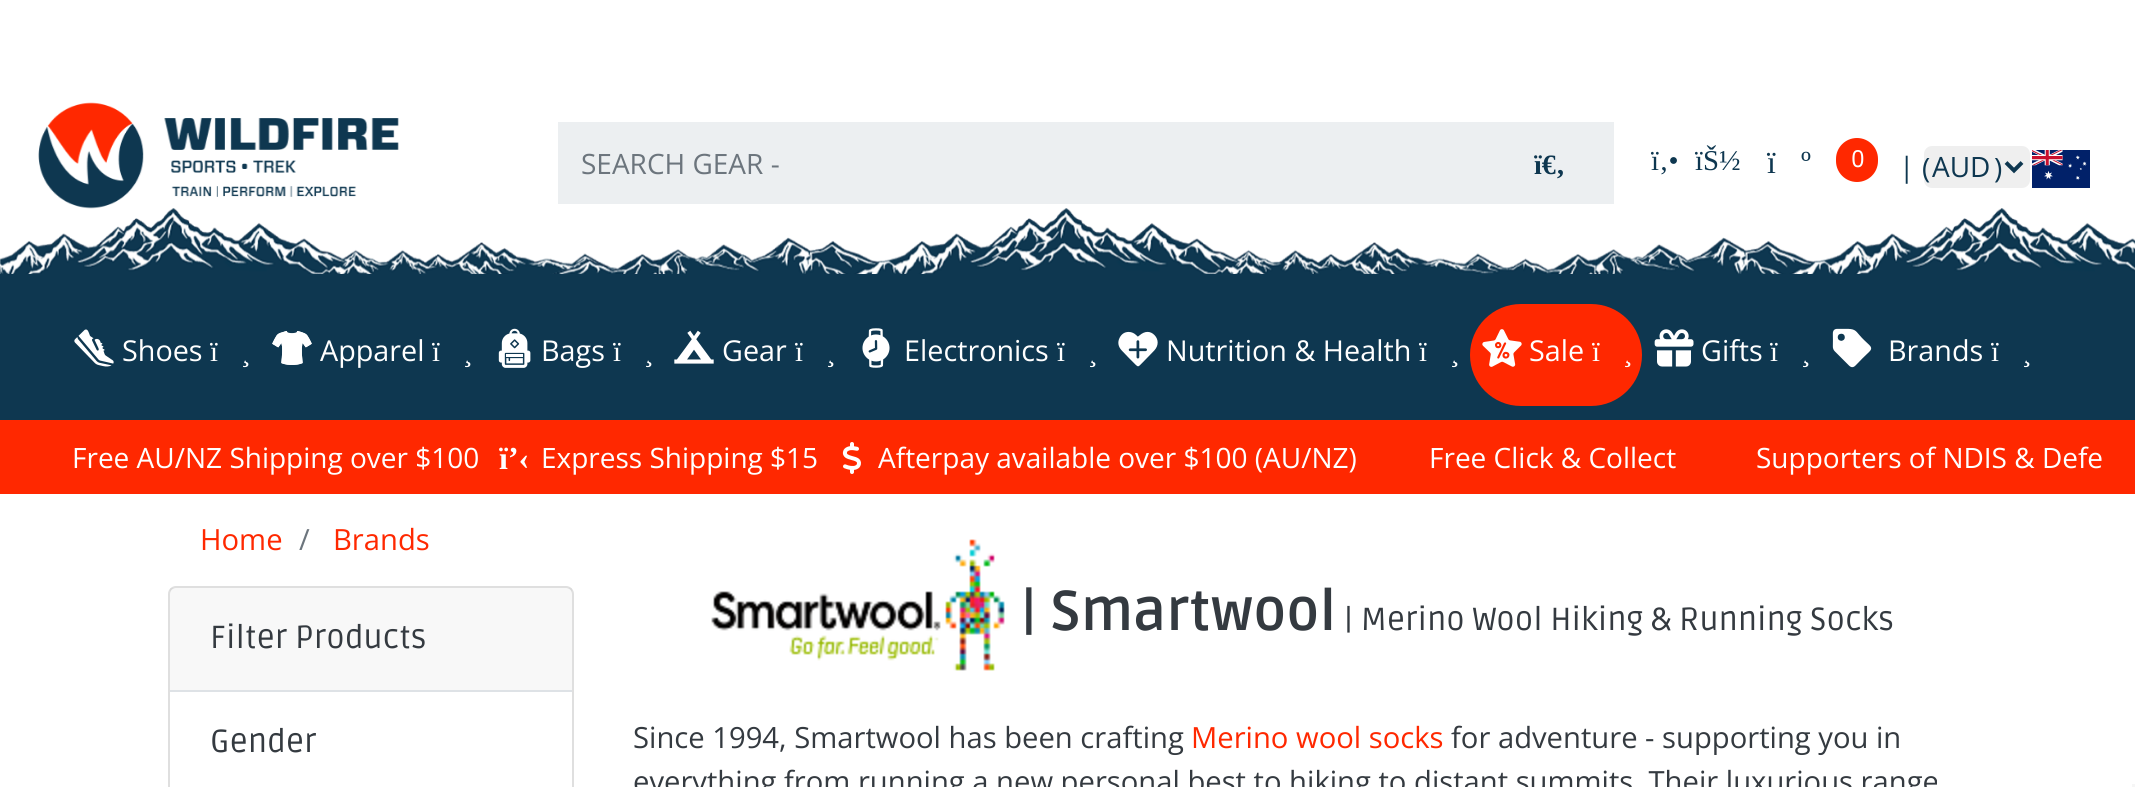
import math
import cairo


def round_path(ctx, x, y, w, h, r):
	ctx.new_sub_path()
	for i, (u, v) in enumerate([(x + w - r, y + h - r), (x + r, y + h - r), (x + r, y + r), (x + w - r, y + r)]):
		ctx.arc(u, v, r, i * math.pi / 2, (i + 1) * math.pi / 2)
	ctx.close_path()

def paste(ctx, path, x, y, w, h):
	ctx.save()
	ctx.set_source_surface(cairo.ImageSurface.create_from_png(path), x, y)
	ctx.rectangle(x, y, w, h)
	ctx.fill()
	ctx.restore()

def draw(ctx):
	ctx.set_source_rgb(1, 1, 1)
	ctx.paint()
	paste(ctx, 'media/1.png', 38, 102, 361, 107)
	ctx.set_source_rgb(0.925, 0.937, 0.945)
	ctx.rectangle(558, 122, 1056, 82)
	ctx.fill()
	ctx.select_font_face('Open Sans')
	ctx.set_font_size(28)
	ctx.set_source_rgb(0.424, 0.459, 0.49)
	ctx.move_to(581, 174)
	ctx.show_text('SEARCH GEAR -')
	ctx.select_font_face('Liberation Serif', cairo.FONT_SLANT_NORMAL, cairo.FONT_WEIGHT_BOLD)
	ctx.set_source_rgb(0.055, 0.216, 0.314)
	ctx.move_to(1534, 174)
	ctx.show_text('ï€‚')
	ctx.select_font_face('Liberation Serif')
	ctx.set_font_size(28.75)
	ctx.move_to(1651, 170)
	ctx.show_text('ï‚•')
	ctx.move_to(1695, 170)
	ctx.show_text('ïŠ½')
	ctx.set_font_size(32)
	ctx.move_to(1767, 173)
	ctx.show_text('ï')
	ctx.move_to(1801, 173)
	ctx.show_text('º')
	ctx.set_source_rgb(1, 0.157, 0)
	round_path(ctx, 1836, 138, 42, 44, 21)
	ctx.fill()
	ctx.select_font_face('Ruda')
	ctx.set_font_size(24)
	ctx.set_source_rgb(1, 1, 1)
	ctx.move_to(1851, 167)
	ctx.show_text('0')
	ctx.select_font_face('Open Sans')
	ctx.set_font_size(28)
	ctx.set_source_rgb(0.055, 0.216, 0.314)
	ctx.move_to(1899, 177)
	ctx.show_text('|')
	ctx.set_source_rgb(0.937, 0.937, 0.937)
	round_path(ctx, 1923, 145, 108, 44, 9)
	ctx.fill_preserve()
	ctx.set_source_rgb(1, 1, 1)
	ctx.stroke()
	ctx.set_source_rgb(0.055, 0.216, 0.314)
	ctx.move_to(1922, 178)
	ctx.show_text('(')
	ctx.new_path()
	ctx.move_to(2006, 162.5)
	ctx.line_to(2014, 170.5)
	ctx.line_to(2022, 162.5)
	ctx.set_line_width(4)
	ctx.stroke()
	ctx.move_to(1932, 177)
	ctx.show_text('AUD')
	ctx.move_to(1994, 178)
	ctx.show_text(')')
	paste(ctx, 'media/2.png', 2032, 150, 58, 38)
	paste(ctx, 'media/3.png', 0, 208, 2135, 66)
	ctx.rectangle(0, 274, 2135, 146)
	ctx.fill()
	paste(ctx, 'media/4.png', 74, 329, 40, 38)
	ctx.set_font_size(28.75)
	ctx.set_source_rgb(1, 1, 1)
	ctx.move_to(122, 361)
	ctx.show_text('Shoes')
	ctx.select_font_face('Liberation Serif')
	ctx.move_to(210, 361)
	ctx.show_text('ï')
	ctx.move_to(241, 361)
	ctx.show_text('¸')
	paste(ctx, 'media/5.png', 272, 331, 40, 34)
	ctx.select_font_face('Open Sans')
	ctx.move_to(320, 361)
	ctx.show_text('Apparel')
	ctx.select_font_face('Liberation Serif')
	ctx.move_to(432, 361)
	ctx.show_text('ï')
	ctx.move_to(463, 361)
	ctx.show_text('¸')
	paste(ctx, 'media/6.png', 498, 328, 33, 40)
	ctx.select_font_face('Open Sans')
	ctx.move_to(541, 361)
	ctx.show_text('Bags')
	ctx.select_font_face('Liberation Serif')
	ctx.move_to(613, 361)
	ctx.show_text('ï')
	ctx.move_to(644, 361)
	ctx.show_text('¸')
	paste(ctx, 'media/7.png', 674, 330, 40, 34)
	ctx.select_font_face('Open Sans')
	ctx.move_to(722, 361)
	ctx.show_text('Gear')
	ctx.select_font_face('Liberation Serif')
	ctx.move_to(795, 361)
	ctx.show_text('ï')
	ctx.move_to(826, 361)
	ctx.show_text('¸')
	paste(ctx, 'media/8.png', 862, 328, 28, 40)
	ctx.select_font_face('Open Sans')
	ctx.move_to(904, 361)
	ctx.show_text('Electronics')
	ctx.select_font_face('Liberation Serif')
	ctx.move_to(1057, 361)
	ctx.show_text('ï')
	ctx.move_to(1088, 361)
	ctx.show_text('¸')
	paste(ctx, 'media/9.png', 1118, 331, 40, 36)
	ctx.select_font_face('Open Sans')
	ctx.move_to(1166, 361)
	ctx.show_text('Nutrition & Health')
	ctx.select_font_face('Liberation Serif')
	ctx.move_to(1419, 361)
	ctx.show_text('ï')
	ctx.move_to(1450, 361)
	ctx.show_text('¸')
	ctx.set_source_rgb(1, 0.157, 0)
	round_path(ctx, 1470, 304, 172, 102, 51)
	ctx.fill()
	paste(ctx, 'media/10.png', 1482, 329, 40, 38)
	ctx.select_font_face('Open Sans')
	ctx.set_source_rgb(1, 1, 1)
	ctx.move_to(1529, 361)
	ctx.show_text('Sale')
	ctx.select_font_face('Liberation Serif')
	ctx.move_to(1592, 361)
	ctx.show_text('ï')
	ctx.move_to(1623, 361)
	ctx.show_text('¸')
	paste(ctx, 'media/11.png', 1654, 329, 40, 38)
	ctx.select_font_face('Open Sans')
	ctx.move_to(1701, 361)
	ctx.show_text('Gifts')
	ctx.select_font_face('Liberation Serif')
	ctx.move_to(1770, 361)
	ctx.show_text('ï')
	ctx.move_to(1801, 361)
	ctx.show_text('¸')
	paste(ctx, 'media/12.png', 1832, 328, 40, 40)
	ctx.select_font_face('Open Sans')
	ctx.move_to(1888, 361)
	ctx.show_text('Brands')
	ctx.select_font_face('Liberation Serif')
	ctx.move_to(1991, 361)
	ctx.show_text('ï')
	ctx.move_to(2022, 361)
	ctx.show_text('¸')
	ctx.set_source_rgb(1, 0.157, 0)
	ctx.rectangle(0, 420, 2135, 74)
	ctx.fill()
	ctx.select_font_face('Open Sans')
	ctx.set_font_size(28)
	ctx.set_source_rgb(1, 1, 1)
	ctx.move_to(72, 468)
	ctx.show_text('Free AU/NZ Shipping over $100')
	ctx.select_font_face('Liberation Serif', cairo.FONT_SLANT_NORMAL, cairo.FONT_WEIGHT_BOLD)
	ctx.set_font_size(32)
	ctx.move_to(499, 469)
	ctx.show_text('ï’‹')
	ctx.select_font_face('Open Sans')
	ctx.set_font_size(28)
	ctx.move_to(541, 468)
	ctx.show_text('Express Shipping $15')
	paste(ctx, 'media/13.png', 842, 442, 19, 32)
	for x, y, s in [
		(878, 468, 'Afterpay available over $100 (AU/NZ)'),
		(1429, 468, 'Free Click & Collect'),
		(1756, 468, 'Supporters of NDIS & Defe'),
	]:
		ctx.move_to(x, y)
		ctx.show_text(s)
	ctx.set_font_size(29.2)
	ctx.set_source_rgb(1, 0.157, 0)
	ctx.move_to(200, 550)
	ctx.show_text('Home')
	ctx.set_source_rgb(0.424, 0.459, 0.49)
	ctx.move_to(299, 550)
	ctx.show_text('/')
	ctx.set_source_rgb(1, 0.157, 0)
	ctx.move_to(333, 550)
	ctx.show_text('Brands')
	round_path(ctx, 169, 587, 404, 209, 7)
	ctx.set_source_rgb(0.875, 0.875, 0.875)
	ctx.set_line_width(2)
	ctx.stroke()
	ctx.set_source_rgba(0, 0, 0, 0.03)
	ctx.rectangle(170, 588, 402, 102)
	ctx.fill()
	ctx.set_source_rgb(0.871, 0.886, 0.902)
	ctx.rectangle(170, 690, 402, 2)
	ctx.fill()
	ctx.select_font_face('Ruda')
	ctx.set_font_size(32)
	ctx.set_source_rgb(0.204, 0.227, 0.251)
	ctx.move_to(210, 648)
	ctx.show_text('Filter Products')
	ctx.move_to(210, 752)
	ctx.show_text('Gender')
	paste(ctx, 'media/14.png', 711, 539, 294, 132)
	ctx.select_font_face('Ruda', cairo.FONT_SLANT_NORMAL, cairo.FONT_WEIGHT_BOLD)
	ctx.set_font_size(56)
	ctx.move_to(1021, 630)
	ctx.show_text('| Smartwool')
	ctx.select_font_face('Ruda')
	ctx.set_font_size(32)
	ctx.move_to(1344, 630)
	ctx.show_text('| Merino Wool Hiking & Running Socks')
	ctx.select_font_face('Open Sans')
	ctx.set_font_size(29.2)
	ctx.move_to(633, 748)
	ctx.show_text('Since 1994, Smartwool has been crafting')
	ctx.set_source_rgb(1, 0.157, 0)
	ctx.move_to(1191, 748)
	ctx.show_text('Merino wool socks')
	ctx.set_source_rgb(0.204, 0.227, 0.251)
	ctx.move_to(1451, 748)
	ctx.show_text('for adventure - supporting you in')
	ctx.move_to(633, 792)
	ctx.show_text('everything from running a new personal best to hiking to distant summits. Their luxurious range')
	ctx.set_source_rgb(0.961, 0.961, 0.961)
	ctx.rectangle(2132, 784, 3, 3)
	ctx.fill()


surface = cairo.ImageSurface(cairo.FORMAT_RGB24, 2135, 787)
ctx = cairo.Context(surface)
options = cairo.FontOptions()
options.set_hint_metrics(cairo.HINT_METRICS_OFF)
options.set_hint_style(cairo.HINT_STYLE_NONE)
ctx.set_font_options(options)
ctx.set_miter_limit(4)
draw(ctx)
surface.write_to_png('image.png')
